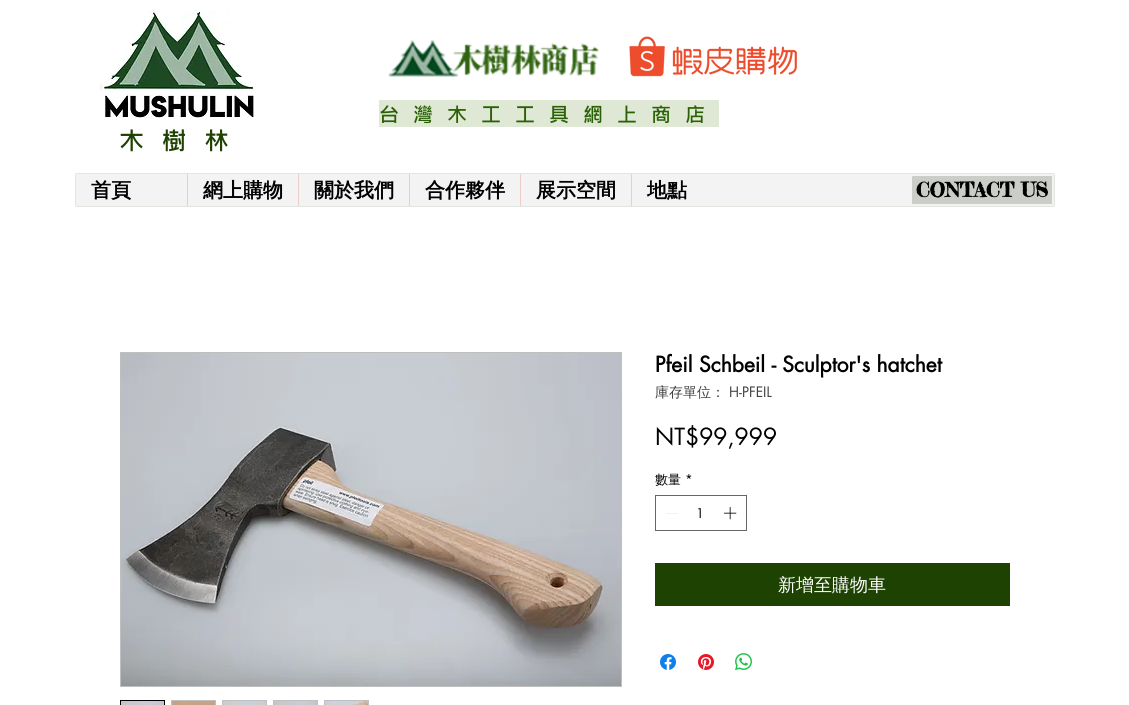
import math
import cairo


def write_spaced(ctx, x, y, s, letter, word):
	ctx.move_to(x, y)
	for ch in s:
		ctx.show_text(ch)
		ctx.rel_move_to(letter + word * (ch == ' '), 0)

def round_path(ctx, x, y, w, h, r):
	ctx.new_sub_path()
	for i, (u, v) in enumerate([(x + w - r, y + h - r), (x + r, y + h - r), (x + r, y + r), (x + w - r, y + r)]):
		ctx.arc(u, v, r, i * math.pi / 2, (i + 1) * math.pi / 2)
	ctx.close_path()

def paste(ctx, path, x, y, w, h):
	ctx.save()
	ctx.set_source_surface(cairo.ImageSurface.create_from_png(path), x, y)
	ctx.rectangle(x, y, w, h)
	ctx.fill()
	ctx.restore()

def draw(ctx):
	ctx.set_source_rgb(1, 1, 1)
	ctx.paint()
	paste(ctx, 'media/1.png', 99, 10, 157, 81)
	paste(ctx, 'media/2.png', 102, 10, 153, 81)
	paste(ctx, 'media/3.png', 388, 40, 211, 37)
	paste(ctx, 'media/4.png', 629, 36, 168, 41)
	paste(ctx, 'media/5.png', 105, 94, 149, 24)
	ctx.set_source_rgb(0.871, 0.91, 0.835)
	ctx.rectangle(379, 100, 340, 27)
	ctx.fill()
	ctx.select_font_face('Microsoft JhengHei', cairo.FONT_SLANT_NORMAL, cairo.FONT_WEIGHT_BOLD)
	ctx.set_font_size(20)
	ctx.set_source_rgb(0.169, 0.38, 0.02)
	write_spaced(ctx, 379, 122, '台灣木工工具網上商店', 14, 0)
	ctx.set_font_size(25)
	ctx.set_source_rgb(0.114, 0.259, 0.008)
	write_spaced(ctx, 119, 150, '木樹林', 17.5, 0)
	ctx.set_source_rgb(0.953, 0.953, 0.953)
	round_path(ctx, 75.5, 173.5, 979, 33, 1.5)
	ctx.fill_preserve()
	ctx.set_source_rgb(0.882, 0.902, 0.871)
	ctx.set_line_width(1)
	ctx.stroke()
	ctx.select_font_face('WenQuanYi Zen Hei', cairo.FONT_SLANT_NORMAL, cairo.FONT_WEIGHT_BOLD)
	ctx.set_font_size(20)
	ctx.set_source_rgb(0, 0, 0)
	ctx.move_to(91, 197)
	ctx.show_text('首頁')
	ctx.set_source_rgb(0.925, 0.804, 0.804)
	ctx.rectangle(187, 174, 1, 32)
	ctx.fill()
	ctx.set_source_rgb(0, 0, 0)
	ctx.move_to(203, 197)
	ctx.show_text('網上購物')
	ctx.set_source_rgb(0.925, 0.804, 0.804)
	ctx.rectangle(298, 174, 1, 32)
	ctx.fill()
	ctx.set_source_rgb(0, 0, 0)
	ctx.move_to(314, 197)
	ctx.show_text('關於我們')
	ctx.set_source_rgb(0.925, 0.804, 0.804)
	ctx.rectangle(409, 174, 1, 32)
	ctx.fill()
	ctx.set_source_rgb(0, 0, 0)
	ctx.move_to(425, 197)
	ctx.show_text('合作夥伴')
	ctx.set_source_rgb(0.925, 0.804, 0.804)
	ctx.rectangle(520, 174, 1, 32)
	ctx.fill()
	ctx.set_source_rgb(0, 0, 0)
	ctx.move_to(536, 197)
	ctx.show_text('展示空間')
	ctx.set_source_rgb(0.925, 0.804, 0.804)
	ctx.rectangle(631, 174, 1, 32)
	ctx.fill()
	ctx.set_source_rgb(0, 0, 0)
	ctx.move_to(647, 197)
	ctx.show_text('地點')
	ctx.set_source_rgb(0.792, 0.804, 0.784)
	round_path(ctx, 912, 176, 140, 28, 1)
	ctx.fill()
	ctx.select_font_face('Fredericka the Great', cairo.FONT_SLANT_NORMAL, cairo.FONT_WEIGHT_BOLD)
	ctx.set_source_rgb(0, 0, 0)
	ctx.move_to(916, 197)
	ctx.show_text('CONTACT US')
	ctx.rectangle(120.5, 352.5, 501, 334)
	ctx.set_source_rgb(0.749, 0.749, 0.749)
	ctx.stroke()
	paste(ctx, 'media/6.png', 121, 353, 500, 333)
	ctx.rectangle(120.5, 700.5, 44, 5)
	ctx.set_source_rgb(0, 0, 0)
	ctx.stroke()
	paste(ctx, 'media/7.png', 121, 701, 43, 4)
	ctx.set_source_rgb(0.749, 0.749, 0.749)
	ctx.rectangle(171, 700, 45, 5)
	ctx.fill()
	paste(ctx, 'media/8.png', 172, 701, 43, 4)
	ctx.rectangle(222, 700, 45, 5)
	ctx.fill()
	paste(ctx, 'media/9.png', 223, 701, 43, 4)
	ctx.rectangle(273, 700, 45, 5)
	ctx.fill()
	paste(ctx, 'media/10.png', 274, 701, 43, 4)
	ctx.rectangle(324, 700, 45, 5)
	ctx.fill()
	paste(ctx, 'media/11.png', 325, 701, 43, 4)
	ctx.select_font_face('futura', cairo.FONT_SLANT_NORMAL, cairo.FONT_WEIGHT_BOLD)
	ctx.set_font_size(21)
	ctx.set_source_rgb(0, 0, 0)
	ctx.move_to(655, 372)
	ctx.show_text('Pfeil Schbeil - Sculptor\'s hatchet')
	ctx.select_font_face('WenQuanYi Zen Hei Medium')
	ctx.set_font_size(14)
	ctx.set_source_rgb(0.251, 0.251, 0.251)
	ctx.move_to(655, 397)
	ctx.show_text('庫存單位：')
	ctx.select_font_face('futura')
	ctx.move_to(729, 397)
	ctx.show_text('H-PFEIL')
	ctx.set_font_size(23)
	ctx.set_source_rgb(0, 0, 0)
	ctx.move_to(655, 445)
	ctx.show_text('NT$99,999')
	ctx.select_font_face('WenQuanYi Zen Hei Medium')
	ctx.set_font_size(13)
	ctx.move_to(655, 484)
	ctx.show_text('數量')
	ctx.select_font_face('futura')
	ctx.move_to(685, 484)
	ctx.show_text('*')
	ctx.rectangle(655.5, 495.5, 91, 35)
	ctx.set_source_rgb(0.4, 0.4, 0.4)
	ctx.stroke()
	ctx.set_source_rgb(0.89, 0.89, 0.89)
	ctx.set_fill_rule(cairo.FILL_RULE_EVEN_ODD)
	ctx.new_path()
	ctx.move_to(678, 513)
	ctx.line_to(678, 513.5)
	ctx.line_to(666, 513.5)
	ctx.line_to(666, 513)
	ctx.close_path()
	ctx.fill()
	ctx.set_source_rgb(0, 0, 0)
	ctx.move_to(696, 518)
	ctx.show_text('1')
	paste(ctx, 'media/12.png', 724, 507, 13, 13)
	ctx.set_source_rgb(0.114, 0.259, 0.008)
	ctx.rectangle(655, 563, 355, 43)
	ctx.fill()
	ctx.select_font_face('WenQuanYi Zen Hei Medium')
	ctx.set_font_size(18)
	ctx.set_source_rgb(1, 1, 1)
	ctx.move_to(778, 591)
	ctx.show_text('新增至購物車')
	paste(ctx, 'media/13.png', 660, 654, 16, 16)
	paste(ctx, 'media/14.png', 698, 654, 16, 16)
	paste(ctx, 'media/15.png', 735, 653, 17, 17)


surface = cairo.ImageSurface(cairo.FORMAT_RGB24, 1129, 705)
ctx = cairo.Context(surface)
options = cairo.FontOptions()
options.set_hint_metrics(cairo.HINT_METRICS_OFF)
options.set_hint_style(cairo.HINT_STYLE_NONE)
ctx.set_font_options(options)
ctx.set_miter_limit(4)
draw(ctx)
surface.write_to_png('image.png')
